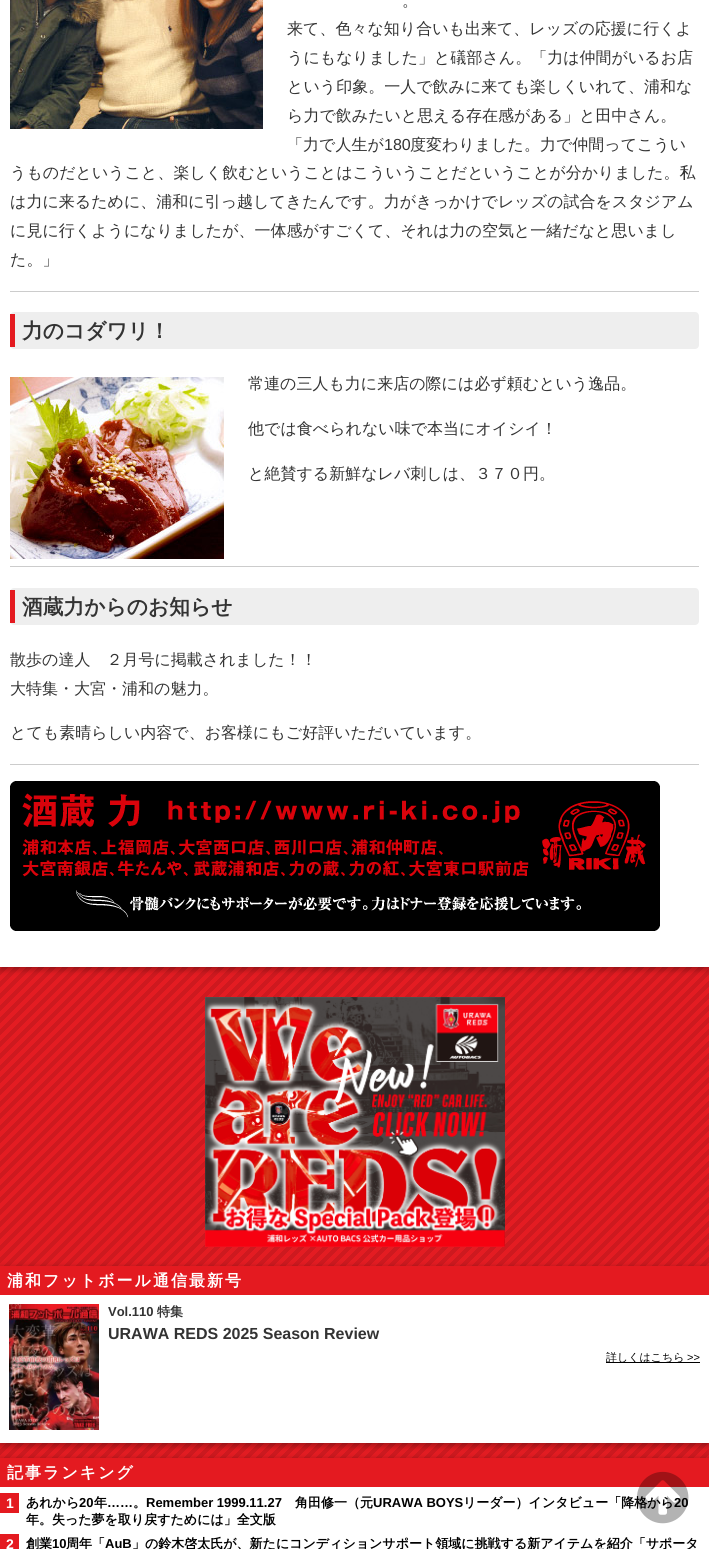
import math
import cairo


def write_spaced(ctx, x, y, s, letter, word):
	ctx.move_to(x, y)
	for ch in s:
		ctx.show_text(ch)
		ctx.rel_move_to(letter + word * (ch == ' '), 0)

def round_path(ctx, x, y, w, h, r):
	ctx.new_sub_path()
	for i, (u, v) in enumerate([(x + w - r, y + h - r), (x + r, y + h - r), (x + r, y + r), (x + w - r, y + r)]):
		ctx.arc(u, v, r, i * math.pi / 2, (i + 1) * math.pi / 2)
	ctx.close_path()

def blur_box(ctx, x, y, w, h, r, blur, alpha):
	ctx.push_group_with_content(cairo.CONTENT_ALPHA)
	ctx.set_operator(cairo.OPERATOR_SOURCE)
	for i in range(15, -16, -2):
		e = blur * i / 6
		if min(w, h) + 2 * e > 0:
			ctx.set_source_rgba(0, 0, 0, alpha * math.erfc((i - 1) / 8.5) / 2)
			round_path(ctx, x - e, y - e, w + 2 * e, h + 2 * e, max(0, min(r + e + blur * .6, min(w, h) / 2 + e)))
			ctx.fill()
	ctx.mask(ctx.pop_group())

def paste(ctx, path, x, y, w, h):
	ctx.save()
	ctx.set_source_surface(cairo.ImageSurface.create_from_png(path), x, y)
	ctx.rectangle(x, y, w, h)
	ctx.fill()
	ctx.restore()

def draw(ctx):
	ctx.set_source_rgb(1, 1, 1)
	ctx.paint()
	paste(ctx, 'media/1.png', 0, 967, 709, 491)
	ctx.set_source_rgb(0, 0, 0)
	blur_box(ctx, 0, -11, 709, 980, 0, 3.5, 0.35)
	ctx.set_source_rgb(1, 1, 1)
	ctx.rectangle(0, 0, 709, 967)
	ctx.fill()
	paste(ctx, 'media/2.png', 10, 0, 253, 129)
	ctx.select_font_face('WenQuanYi Zen Hei Medium')
	ctx.set_font_size(16)
	ctx.set_source_rgb(0.2, 0.2, 0.2)
	for x, y, s in [
		(402, 6, '。'),
		(287, 34, '来て、色々な知り合いも出来て、レッズの応援に行くよ'),
		(287, 63, 'うにもなりました」と礒部さん。「力は仲間がいるお店'),
		(287, 92, 'という印象。一人で飲みに来ても楽しくいれて、浦和な'),
		(287, 121, 'ら力で飲みたいと思える存在感がある」と田中さん。'),
		(287, 150, '「力で人生が'),
	]:
		ctx.move_to(x, y)
		ctx.show_text(s)
	ctx.select_font_face('Liberation Sans')
	ctx.move_to(384, 150)
	ctx.show_text('180')
	ctx.select_font_face('WenQuanYi Zen Hei Medium')
	for x, y, s in [
		(410, 150, '度変わりました。力で仲間ってこうい'),
		(10, 178, 'うものだということ、楽しく飲むということはこういうことだということが分かりました。私'),
		(10, 207, 'は力に来るために、浦和に引っ越してきたんです。力がきっかけでレッズの試合をスタジアム'),
		(10, 236, 'に見に行くようになりましたが、一体感がすごくて、それは力の空気と一緒だなと思いまし'),
		(10, 265, 'た。」'),
	]:
		ctx.move_to(x, y)
		ctx.show_text(s)
	ctx.set_source_rgb(0.8, 0.8, 0.8)
	ctx.rectangle(10, 291, 689, 1)
	ctx.fill()
	ctx.set_source_rgb(0.933, 0.933, 0.933)
	round_path(ctx, 10, 312, 689, 37, 4)
	ctx.fill()
	ctx.set_source_rgb(0.894, 0.102, 0.125)
	ctx.rectangle(10, 314, 5, 33)
	ctx.fill()
	ctx.select_font_face('WenQuanYi Zen Hei', cairo.FONT_SLANT_NORMAL, cairo.FONT_WEIGHT_BOLD)
	ctx.set_font_size(20.75)
	ctx.set_source_rgb(0.2, 0.2, 0.2)
	ctx.move_to(22, 338)
	ctx.show_text('力のコダワリ！')
	paste(ctx, 'media/3.png', 10, 377, 214, 182)
	ctx.select_font_face('WenQuanYi Zen Hei Medium')
	ctx.set_font_size(16)
	for x, y, s in [
		(248, 389, '常連の三人も力に来店の際には必ず頼むという逸品。'),
		(248, 434, '他では食べられない味で本当にオイシイ！'),
		(248, 479, 'と絶賛する新鮮なレバ刺しは、３７０円。'),
	]:
		ctx.move_to(x, y)
		ctx.show_text(s)
	ctx.set_source_rgb(0.8, 0.8, 0.8)
	ctx.rectangle(10, 566, 689, 1)
	ctx.fill()
	ctx.set_source_rgb(0.933, 0.933, 0.933)
	round_path(ctx, 10, 588, 689, 37, 4)
	ctx.fill()
	ctx.set_source_rgb(0.894, 0.102, 0.125)
	ctx.rectangle(10, 590, 5, 33)
	ctx.fill()
	ctx.select_font_face('WenQuanYi Zen Hei', cairo.FONT_SLANT_NORMAL, cairo.FONT_WEIGHT_BOLD)
	ctx.set_font_size(20.75)
	ctx.set_source_rgb(0.2, 0.2, 0.2)
	ctx.move_to(22, 614)
	ctx.show_text('酒蔵力からのお知らせ')
	ctx.select_font_face('WenQuanYi Zen Hei Medium')
	ctx.set_font_size(16)
	for x, y, s in [
		(10, 665, '散歩の達人　２月号に掲載されました！！'),
		(10, 694, '大特集・大宮・浦和の魅力。'),
		(10, 738, 'とても素晴らしい内容で、お客様にもご好評いただいています。'),
	]:
		ctx.move_to(x, y)
		ctx.show_text(s)
	ctx.set_source_rgb(0.8, 0.8, 0.8)
	ctx.rectangle(10, 764, 689, 1)
	ctx.fill()
	paste(ctx, 'media/4.png', 10, 781, 650, 150)
	paste(ctx, 'media/5.png', 205, 997, 300, 250)
	ctx.set_source_rgb(0, 0, 0)
	blur_box(ctx, 0, 1268, 709, 177, 0, 3.5, 0.35)
	ctx.set_source_rgb(1, 1, 1)
	ctx.rectangle(0, 1295, 709, 148)
	ctx.fill()
	ctx.set_source_rgb(0.894, 0.102, 0.125)
	ctx.rectangle(0, 1266, 709, 29)
	ctx.fill()
	ctx.select_font_face('WenQuanYi Zen Hei', cairo.FONT_SLANT_NORMAL, cairo.FONT_WEIGHT_BOLD)
	ctx.set_source_rgb(1, 1, 1)
	write_spaced(ctx, 7, 1286, '浦和フットボール通信最新号', 2, 0)
	paste(ctx, 'media/6.png', 9, 1304, 90, 126)
	ctx.select_font_face('Liberation Sans', cairo.FONT_SLANT_NORMAL, cairo.FONT_WEIGHT_BOLD)
	ctx.set_font_size(13)
	ctx.set_source_rgb(0.2, 0.2, 0.2)
	ctx.move_to(108, 1316)
	ctx.show_text('Vol.110')
	ctx.select_font_face('WenQuanYi Zen Hei', cairo.FONT_SLANT_NORMAL, cairo.FONT_WEIGHT_BOLD)
	ctx.move_to(157, 1316)
	ctx.show_text('特集')
	ctx.select_font_face('Liberation Sans', cairo.FONT_SLANT_NORMAL, cairo.FONT_WEIGHT_BOLD)
	ctx.set_font_size(16)
	ctx.move_to(108, 1339)
	ctx.show_text('URAWA REDS 2025 Season Review')
	ctx.set_source_rgb(0, 0, 0)
	ctx.rectangle(606, 1362, 94, 1)
	ctx.fill()
	ctx.select_font_face('WenQuanYi Zen Hei Medium')
	ctx.set_font_size(11)
	ctx.move_to(606, 1361)
	ctx.show_text('詳しくはこちら')
	ctx.select_font_face('Liberation Sans')
	ctx.move_to(687, 1361)
	ctx.show_text('>>')
	ctx.set_source_rgb(0, 0, 0)
	blur_box(ctx, 0, 1460, 709, 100, 0, 3.5, 0.35)
	ctx.set_source_rgb(1, 1, 1)
	ctx.rectangle(0, 1487, 709, 62)
	ctx.fill()
	ctx.set_source_rgb(0.894, 0.102, 0.125)
	ctx.rectangle(0, 1458, 709, 29)
	ctx.fill()
	ctx.select_font_face('WenQuanYi Zen Hei', cairo.FONT_SLANT_NORMAL, cairo.FONT_WEIGHT_BOLD)
	ctx.set_font_size(16)
	ctx.set_source_rgb(1, 1, 1)
	write_spaced(ctx, 7, 1478, '記事ランキング', 2, 0)
	ctx.set_source_rgb(0.894, 0.102, 0.125)
	ctx.rectangle(0, 1493, 19, 20)
	ctx.fill()
	ctx.select_font_face('Liberation Sans', cairo.FONT_SLANT_NORMAL, cairo.FONT_WEIGHT_BOLD)
	ctx.set_font_size(14)
	ctx.set_source_rgb(1, 1, 1)
	ctx.move_to(6, 1508)
	ctx.show_text('1')
	ctx.select_font_face('WenQuanYi Zen Hei', cairo.FONT_SLANT_NORMAL, cairo.FONT_WEIGHT_BOLD)
	ctx.set_font_size(13)
	ctx.set_source_rgb(0, 0, 0)
	ctx.move_to(26, 1507)
	ctx.show_text('あれから')
	ctx.select_font_face('Liberation Sans', cairo.FONT_SLANT_NORMAL, cairo.FONT_WEIGHT_BOLD)
	ctx.move_to(79, 1507)
	ctx.show_text('20')
	ctx.select_font_face('WenQuanYi Zen Hei', cairo.FONT_SLANT_NORMAL, cairo.FONT_WEIGHT_BOLD)
	ctx.move_to(94, 1507)
	ctx.show_text('年')
	ctx.select_font_face('Liberation Sans', cairo.FONT_SLANT_NORMAL, cairo.FONT_WEIGHT_BOLD)
	ctx.move_to(107, 1507)
	ctx.show_text('……')
	ctx.select_font_face('WenQuanYi Zen Hei', cairo.FONT_SLANT_NORMAL, cairo.FONT_WEIGHT_BOLD)
	ctx.move_to(133, 1507)
	ctx.show_text('。')
	ctx.select_font_face('Liberation Sans', cairo.FONT_SLANT_NORMAL, cairo.FONT_WEIGHT_BOLD)
	ctx.move_to(146, 1507)
	ctx.show_text('Remember 1999.11.27')
	ctx.select_font_face('WenQuanYi Zen Hei', cairo.FONT_SLANT_NORMAL, cairo.FONT_WEIGHT_BOLD)
	ctx.move_to(295, 1507)
	ctx.show_text('角田修一（元')
	ctx.select_font_face('Liberation Sans', cairo.FONT_SLANT_NORMAL, cairo.FONT_WEIGHT_BOLD)
	ctx.move_to(373, 1507)
	ctx.show_text('URAWA BOYS')
	ctx.select_font_face('WenQuanYi Zen Hei', cairo.FONT_SLANT_NORMAL, cairo.FONT_WEIGHT_BOLD)
	ctx.move_to(463, 1507)
	ctx.show_text('リーダー）インタビュー「降格から')
	ctx.select_font_face('Liberation Sans', cairo.FONT_SLANT_NORMAL, cairo.FONT_WEIGHT_BOLD)
	ctx.move_to(674, 1507)
	ctx.show_text('20')
	ctx.select_font_face('WenQuanYi Zen Hei', cairo.FONT_SLANT_NORMAL, cairo.FONT_WEIGHT_BOLD)
	ctx.move_to(26, 1524)
	ctx.show_text('年。失った夢を取り戻すためには」全文版')
	ctx.set_source_rgb(0.894, 0.102, 0.125)
	ctx.rectangle(0, 1534, 19, 15)
	ctx.fill()
	ctx.select_font_face('Liberation Sans', cairo.FONT_SLANT_NORMAL, cairo.FONT_WEIGHT_BOLD)
	ctx.set_font_size(14)
	ctx.set_source_rgb(1, 1, 1)
	ctx.move_to(6, 1549)
	ctx.show_text('2')
	ctx.select_font_face('WenQuanYi Zen Hei', cairo.FONT_SLANT_NORMAL, cairo.FONT_WEIGHT_BOLD)
	ctx.set_font_size(13)
	ctx.set_source_rgb(0, 0, 0)
	ctx.move_to(26, 1548)
	ctx.show_text('創業')
	ctx.select_font_face('Liberation Sans', cairo.FONT_SLANT_NORMAL, cairo.FONT_WEIGHT_BOLD)
	ctx.move_to(52, 1548)
	ctx.show_text('10')
	ctx.select_font_face('WenQuanYi Zen Hei', cairo.FONT_SLANT_NORMAL, cairo.FONT_WEIGHT_BOLD)
	ctx.move_to(66, 1548)
	ctx.show_text('周年「')
	ctx.select_font_face('Liberation Sans', cairo.FONT_SLANT_NORMAL, cairo.FONT_WEIGHT_BOLD)
	ctx.move_to(105, 1548)
	ctx.show_text('AuB')
	ctx.select_font_face('WenQuanYi Zen Hei', cairo.FONT_SLANT_NORMAL, cairo.FONT_WEIGHT_BOLD)
	ctx.move_to(132, 1548)
	ctx.show_text('」の鈴木啓太氏が、新たにコンディションサポート領域に挑戦する新アイテムを紹介「サポータ')
	paste(ctx, 'media/7.png', 637, 1471, 52, 53)


surface = cairo.ImageSurface(cairo.FORMAT_RGB24, 709, 1549)
ctx = cairo.Context(surface)
options = cairo.FontOptions()
options.set_hint_metrics(cairo.HINT_METRICS_OFF)
options.set_hint_style(cairo.HINT_STYLE_NONE)
ctx.set_font_options(options)
ctx.set_miter_limit(4)
draw(ctx)
surface.write_to_png('image.png')
